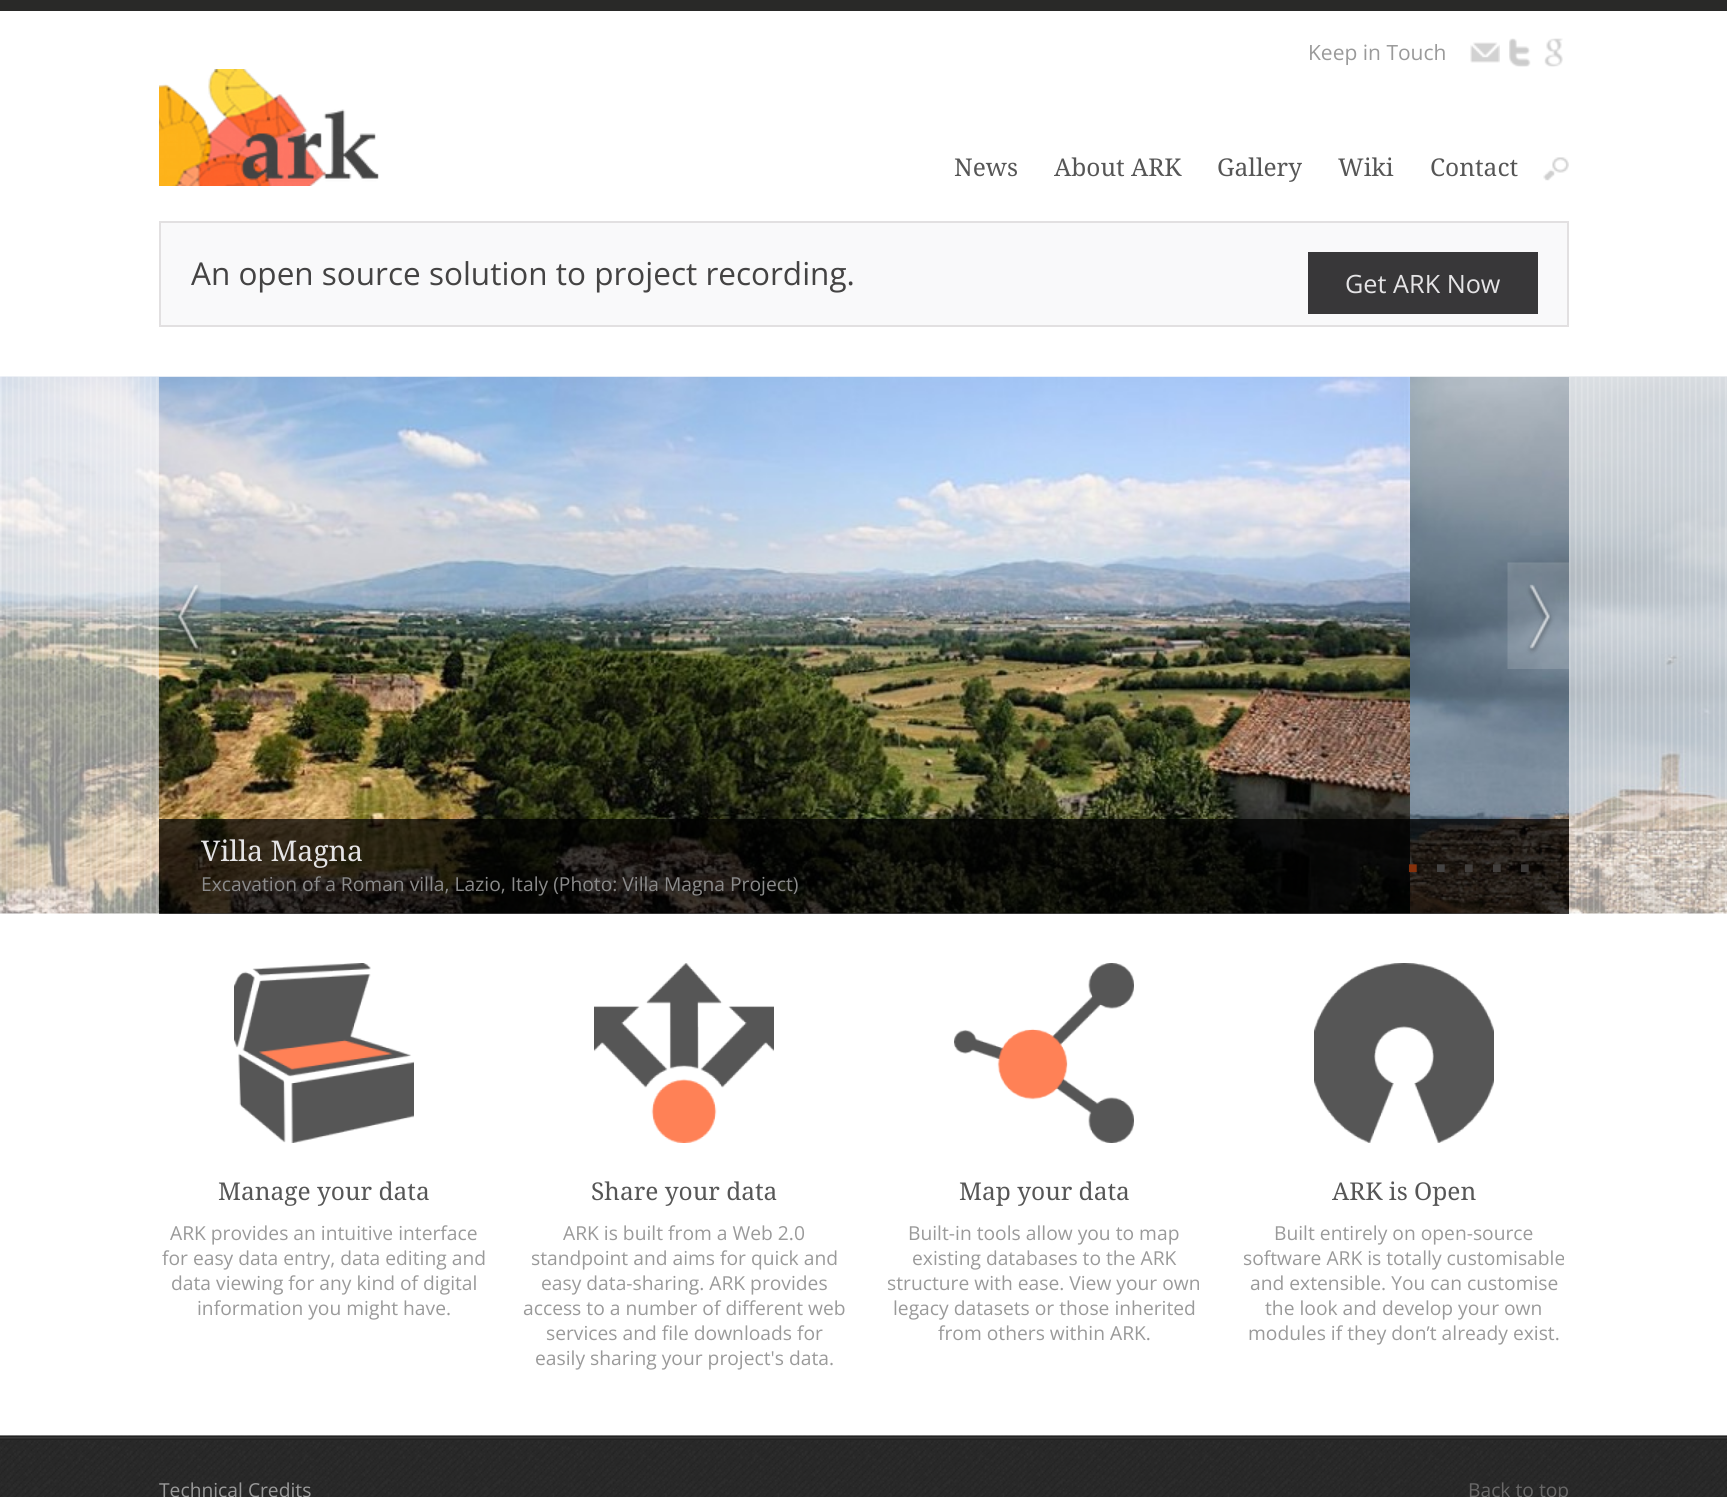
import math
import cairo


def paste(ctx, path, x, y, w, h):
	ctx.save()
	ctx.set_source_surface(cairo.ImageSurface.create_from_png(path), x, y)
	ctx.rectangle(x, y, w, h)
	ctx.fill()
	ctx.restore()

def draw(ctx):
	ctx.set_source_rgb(1, 1, 1)
	ctx.paint()
	ctx.set_source_rgb(0.161, 0.161, 0.157)
	ctx.rectangle(0, 0, 1727, 11)
	ctx.fill()
	ctx.select_font_face('Open Sans')
	ctx.set_font_size(21)
	ctx.set_source_rgb(0.604, 0.604, 0.604)
	ctx.move_to(1308, 60)
	ctx.show_text('Keep in Touch')
	paste(ctx, 'media/1.png', 1470, 42, 30, 21)
	paste(ctx, 'media/2.png', 1509, 38, 22, 29)
	paste(ctx, 'media/3.png', 1544, 38, 19, 29)
	paste(ctx, 'media/4.png', 159, 69, 220, 117)
	ctx.select_font_face('Droid Serif')
	ctx.set_font_size(24.5)
	ctx.set_source_rgb(0.337, 0.337, 0.337)
	for x, y, s in [
		(954, 176, 'News'),
		(1054, 176, 'About ARK'),
		(1217, 176, 'Gallery'),
		(1338, 176, 'Wiki'),
		(1430, 176, 'Contact'),
	]:
		ctx.move_to(x, y)
		ctx.show_text(s)
	paste(ctx, 'media/5.png', 1543, 157, 26, 24)
	ctx.set_source_rgb(0.976, 0.973, 0.98)
	ctx.rectangle(160, 222, 1408, 104)
	ctx.fill_preserve()
	ctx.set_source_rgb(0.886, 0.878, 0.882)
	ctx.stroke()
	ctx.select_font_face('Open Sans')
	ctx.set_font_size(31.5)
	ctx.set_source_rgb(0.267, 0.263, 0.263)
	ctx.move_to(191, 285)
	ctx.show_text('An open source solution to project recording.')
	ctx.set_source_rgb(0.22, 0.216, 0.224)
	ctx.rectangle(1308, 252, 230, 62)
	ctx.fill()
	ctx.set_font_size(25.25)
	ctx.set_source_rgb(0.898, 0.894, 0.902)
	ctx.move_to(1345, 293)
	ctx.show_text('Get ARK Now')
	paste(ctx, 'media/6.png', 0, 376, 1410, 538)
	paste(ctx, 'media/7.png', 1410, 376, 317, 538)
	paste(ctx, 'media/8.png', 0, 376, 159, 538)
	paste(ctx, 'media/9.png', 159, 562, 62, 107)
	paste(ctx, 'media/10.png', 1507, 562, 62, 107)
	paste(ctx, 'media/11.png', 1569, 377, 158, 537)
	ctx.set_source_rgba(0, 0, 0, 0.74)
	ctx.rectangle(159, 819, 1410, 95)
	ctx.fill()
	ctx.select_font_face('Droid Serif')
	ctx.set_font_size(28.5)
	ctx.set_source_rgb(0.898, 0.894, 0.902)
	ctx.move_to(201, 861)
	ctx.show_text('Villa Magna')
	ctx.select_font_face('Open Sans')
	ctx.set_font_size(19.25)
	ctx.set_source_rgb(0.545, 0.545, 0.545)
	ctx.move_to(201, 891)
	ctx.show_text('Excavation of a Roman villa, Lazio, Italy (Photo: Villa Magna Project)')
	ctx.select_font_face('Liberation Sans')
	ctx.set_font_size(16)
	ctx.set_source_rgb(0.529, 0.192, 0.043)
	ctx.move_to(1408, 873)
	ctx.show_text('■')
	ctx.set_source_rgb(0.267, 0.263, 0.263)
	ctx.move_to(1436, 873)
	ctx.show_text('■')
	ctx.set_source_rgb(0.259, 0.247, 0.239)
	ctx.move_to(1464, 873)
	ctx.show_text('■')
	ctx.move_to(1492, 873)
	ctx.show_text('■')
	ctx.set_source_rgb(0.231, 0.224, 0.22)
	ctx.move_to(1520, 873)
	ctx.show_text('■')
	paste(ctx, 'media/12.png', 234, 963, 180, 180)
	ctx.select_font_face('Droid Serif')
	ctx.set_font_size(24.5)
	ctx.set_source_rgb(0.337, 0.337, 0.337)
	ctx.move_to(218, 1200)
	ctx.show_text('Manage your data')
	ctx.select_font_face('Open Sans')
	ctx.set_font_size(19.25)
	ctx.set_source_rgb(0.604, 0.604, 0.604)
	for x, y, s in [
		(170, 1240, 'ARK provides an intuitive interface'),
		(162, 1265, 'for easy data entry, data editing and'),
		(171, 1290, 'data viewing for any kind of digital'),
		(197, 1315, 'information you might have.'),
	]:
		ctx.move_to(x, y)
		ctx.show_text(s)
	paste(ctx, 'media/13.png', 594, 963, 180, 180)
	ctx.select_font_face('Droid Serif')
	ctx.set_font_size(24.5)
	ctx.set_source_rgb(0.337, 0.337, 0.337)
	ctx.move_to(591, 1200)
	ctx.show_text('Share your data')
	ctx.select_font_face('Open Sans')
	ctx.set_font_size(19.25)
	ctx.set_source_rgb(0.604, 0.604, 0.604)
	for x, y, s in [
		(563, 1240, 'ARK is built from a Web 2.0'),
		(531, 1265, 'standpoint and aims for quick and'),
		(541, 1290, 'easy data-sharing. ARK provides'),
		(523, 1315, 'access to a number of different web'),
		(546, 1340, 'services and file downloads for'),
		(535, 1365, 'easily sharing your project\'s data.'),
	]:
		ctx.move_to(x, y)
		ctx.show_text(s)
	paste(ctx, 'media/14.png', 954, 963, 180, 180)
	ctx.select_font_face('Droid Serif')
	ctx.set_font_size(24.5)
	ctx.set_source_rgb(0.337, 0.337, 0.337)
	ctx.move_to(959, 1200)
	ctx.show_text('Map your data')
	ctx.select_font_face('Open Sans')
	ctx.set_font_size(19.25)
	ctx.set_source_rgb(0.604, 0.604, 0.604)
	for x, y, s in [
		(908, 1240, 'Built-in tools allow you to map'),
		(912, 1265, 'existing databases to the ARK'),
		(887, 1290, 'structure with ease. View your own'),
		(893, 1315, 'legacy datasets or those inherited'),
		(938, 1340, 'from others within ARK.'),
	]:
		ctx.move_to(x, y)
		ctx.show_text(s)
	paste(ctx, 'media/15.png', 1314, 963, 180, 180)
	ctx.select_font_face('Droid Serif')
	ctx.set_font_size(24.5)
	ctx.set_source_rgb(0.337, 0.337, 0.337)
	ctx.move_to(1332, 1200)
	ctx.show_text('ARK is Open')
	ctx.select_font_face('Open Sans')
	ctx.set_font_size(19.25)
	ctx.set_source_rgb(0.604, 0.604, 0.604)
	for x, y, s in [
		(1274, 1240, 'Built entirely on open-source'),
		(1243, 1265, 'software ARK is totally customisable'),
		(1250, 1290, 'and extensible. You can customise'),
		(1265, 1315, 'the look and develop your own'),
		(1248, 1340, 'modules if they don’t already exist.'),
	]:
		ctx.move_to(x, y)
		ctx.show_text(s)
	paste(ctx, 'media/16.png', 0, 1435, 1727, 62)
	paste(ctx, 'media/17.png', 0, 1435, 1727, 5)
	ctx.move_to(159, 1497)
	ctx.show_text('Technical Credits')
	ctx.set_source_rgb(0.412, 0.408, 0.408)
	ctx.move_to(1468, 1497)
	ctx.show_text('Back to top')


surface = cairo.ImageSurface(cairo.FORMAT_RGB24, 1727, 1497)
ctx = cairo.Context(surface)
options = cairo.FontOptions()
options.set_hint_metrics(cairo.HINT_METRICS_OFF)
options.set_hint_style(cairo.HINT_STYLE_NONE)
ctx.set_font_options(options)
ctx.set_miter_limit(4)
draw(ctx)
surface.write_to_png('image.png')
